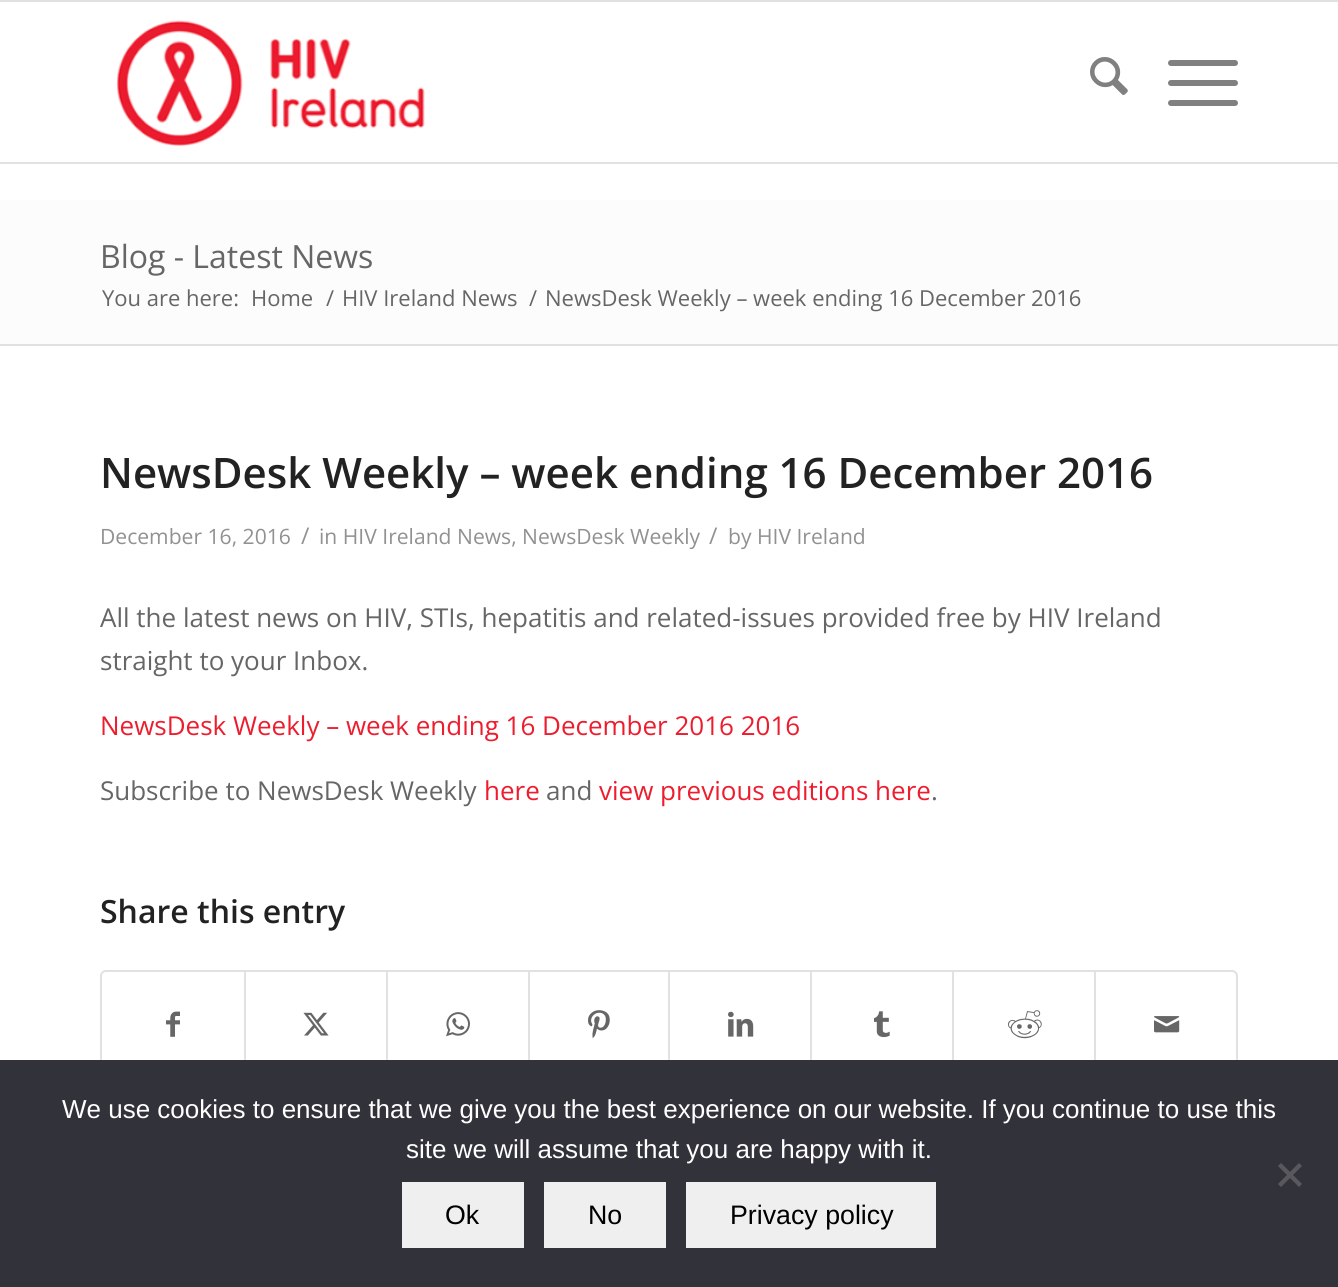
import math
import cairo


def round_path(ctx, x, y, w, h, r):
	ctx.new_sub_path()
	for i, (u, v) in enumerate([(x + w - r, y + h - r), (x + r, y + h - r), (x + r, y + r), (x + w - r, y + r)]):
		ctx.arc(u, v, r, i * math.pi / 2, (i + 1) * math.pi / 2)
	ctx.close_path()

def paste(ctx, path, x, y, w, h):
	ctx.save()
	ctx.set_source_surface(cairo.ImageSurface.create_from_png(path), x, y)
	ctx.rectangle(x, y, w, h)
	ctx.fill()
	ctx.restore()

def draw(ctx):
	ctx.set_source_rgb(1, 1, 1)
	ctx.paint()
	ctx.set_source_rgb(0.882, 0.882, 0.882)
	ctx.rectangle(0, 0, 1338, 2)
	ctx.fill()
	ctx.rectangle(0, 162, 1338, 2)
	ctx.fill()
	paste(ctx, 'media/1.png', 116, 20, 309, 126)
	paste(ctx, 'media/2.png', 1090, 57, 38, 38)
	ctx.set_source_rgb(0.502, 0.502, 0.502)
	round_path(ctx, 1168, 80, 70, 6, 3)
	ctx.fill()
	round_path(ctx, 1168, 60, 70, 6, 3)
	ctx.fill()
	round_path(ctx, 1168, 100, 70, 6, 3)
	ctx.fill()
	ctx.set_source_rgb(0.988, 0.988, 0.988)
	ctx.rectangle(0, 200, 1338, 144)
	ctx.fill()
	ctx.select_font_face('Open Sans')
	ctx.set_font_size(32)
	ctx.set_source_rgb(0.4, 0.4, 0.4)
	ctx.move_to(100, 268)
	ctx.show_text('Blog - Latest News')
	ctx.set_font_size(22)
	for x, y, s in [
		(102, 306, 'You are here:'),
		(251, 306, 'Home'),
		(326, 306, '/'),
		(342, 306, 'HIV Ireland News'),
		(529, 306, '/'),
		(545, 306, 'NewsDesk Weekly – week ending 16 December 2016'),
	]:
		ctx.move_to(x, y)
		ctx.show_text(s)
	ctx.set_source_rgb(0.882, 0.882, 0.882)
	ctx.rectangle(0, 344, 1338, 2)
	ctx.fill()
	ctx.select_font_face('Open Sans SemiBold')
	ctx.set_font_size(42)
	ctx.set_source_rgb(0.133, 0.133, 0.133)
	ctx.move_to(100, 488)
	ctx.show_text('NewsDesk Weekly – week ending 16 December 2016')
	ctx.select_font_face('Open Sans')
	ctx.set_font_size(21.1)
	ctx.set_source_rgb(0.569, 0.569, 0.569)
	ctx.move_to(100, 544)
	ctx.show_text('December 16, 2016')
	ctx.set_font_size(23)
	ctx.move_to(301, 544)
	ctx.show_text('/')
	ctx.set_font_size(21.1)
	ctx.move_to(319, 544)
	ctx.show_text('in HIV Ireland News, NewsDesk Weekly')
	ctx.set_font_size(23)
	ctx.move_to(709, 544)
	ctx.show_text('/')
	ctx.set_font_size(21.1)
	ctx.move_to(728, 544)
	ctx.show_text('by HIV Ireland')
	ctx.set_font_size(26)
	ctx.set_source_rgb(0.4, 0.4, 0.4)
	ctx.move_to(100, 627)
	ctx.show_text('All the latest news on HIV, STIs, hepatitis and related-issues provided free by HIV Ireland')
	ctx.move_to(100, 670)
	ctx.show_text('straight to your Inbox.')
	ctx.set_source_rgb(0.929, 0.114, 0.18)
	ctx.move_to(100, 735)
	ctx.show_text('NewsDesk Weekly – week ending 16 December 2016 2016')
	ctx.set_source_rgb(0.4, 0.4, 0.4)
	ctx.move_to(100, 800)
	ctx.show_text('Subscribe to NewsDesk Weekly')
	ctx.set_source_rgb(0.929, 0.114, 0.18)
	ctx.move_to(484, 800)
	ctx.show_text('here')
	ctx.set_source_rgb(0.4, 0.4, 0.4)
	ctx.move_to(546, 800)
	ctx.show_text('and')
	ctx.set_source_rgb(0.929, 0.114, 0.18)
	ctx.move_to(599, 800)
	ctx.show_text('view previous editions here')
	ctx.set_source_rgb(0.4, 0.4, 0.4)
	ctx.move_to(931, 800)
	ctx.show_text('.')
	ctx.select_font_face('Open Sans SemiBold')
	ctx.set_font_size(32)
	ctx.set_source_rgb(0.133, 0.133, 0.133)
	ctx.move_to(100, 923)
	ctx.show_text('Share this entry')
	round_path(ctx, 101, 971, 1136, 108, 5)
	ctx.set_source_rgb(0.882, 0.882, 0.882)
	ctx.stroke()
	paste(ctx, 'media/3.png', 166, 1011, 14, 26)
	ctx.rectangle(244, 972, 2, 88)
	ctx.fill()
	paste(ctx, 'media/4.png', 303, 1012, 26, 24)
	ctx.rectangle(386, 972, 2, 88)
	ctx.fill()
	paste(ctx, 'media/5.png', 446, 1012, 24, 25)
	ctx.rectangle(528, 972, 2, 88)
	ctx.fill()
	paste(ctx, 'media/6.png', 588, 1010, 22, 28)
	ctx.rectangle(668, 972, 2, 88)
	ctx.fill()
	paste(ctx, 'media/7.png', 728, 1011, 26, 26)
	ctx.rectangle(810, 972, 2, 88)
	ctx.fill()
	paste(ctx, 'media/8.png', 874, 1011, 16, 27)
	ctx.rectangle(952, 972, 2, 88)
	ctx.fill()
	paste(ctx, 'media/9.png', 1008, 1010, 34, 29)
	ctx.rectangle(1094, 972, 2, 88)
	ctx.fill()
	paste(ctx, 'media/10.png', 1154, 1016, 26, 17)
	ctx.set_source_rgb(0.196, 0.196, 0.227)
	ctx.rectangle(0, 1060, 1338, 227)
	ctx.fill()
	ctx.select_font_face('Liberation Sans')
	ctx.set_font_size(26)
	ctx.set_source_rgb(1, 1, 1)
	ctx.move_to(62, 1118)
	ctx.show_text('We use cookies to ensure that we give you the best experience on our website. If you continue to use this')
	ctx.move_to(406, 1158)
	ctx.show_text('site we will assume that you are happy with it.')
	ctx.set_source_rgb(0.349, 0.349, 0.365)
	ctx.new_path()
	ctx.move_to(1299, 1163)
	ctx.line_to(1302, 1166)
	ctx.line_to(1281, 1187)
	ctx.line_to(1278, 1184)
	ctx.close_path()
	ctx.fill()
	ctx.new_path()
	ctx.move_to(1278, 1166)
	ctx.line_to(1281, 1163)
	ctx.line_to(1302, 1184)
	ctx.line_to(1299, 1187)
	ctx.close_path()
	ctx.fill()
	ctx.set_source_rgb(0.937, 0.937, 0.937)
	ctx.rectangle(402, 1182, 122, 66)
	ctx.fill()
	ctx.set_font_size(26.75)
	ctx.set_source_rgb(0, 0, 0)
	ctx.move_to(445, 1224)
	ctx.show_text('Ok')
	ctx.set_source_rgb(0.937, 0.937, 0.937)
	ctx.rectangle(544, 1182, 122, 66)
	ctx.fill()
	ctx.set_source_rgb(0, 0, 0)
	ctx.move_to(588, 1224)
	ctx.show_text('No')
	ctx.set_source_rgb(0.937, 0.937, 0.937)
	ctx.rectangle(686, 1182, 250, 66)
	ctx.fill()
	ctx.set_source_rgb(0, 0, 0)
	ctx.move_to(730, 1224)
	ctx.show_text('Privacy policy')


surface = cairo.ImageSurface(cairo.FORMAT_RGB24, 1338, 1287)
ctx = cairo.Context(surface)
options = cairo.FontOptions()
options.set_hint_metrics(cairo.HINT_METRICS_OFF)
options.set_hint_style(cairo.HINT_STYLE_NONE)
ctx.set_font_options(options)
ctx.set_miter_limit(4)
draw(ctx)
surface.write_to_png('image.png')
